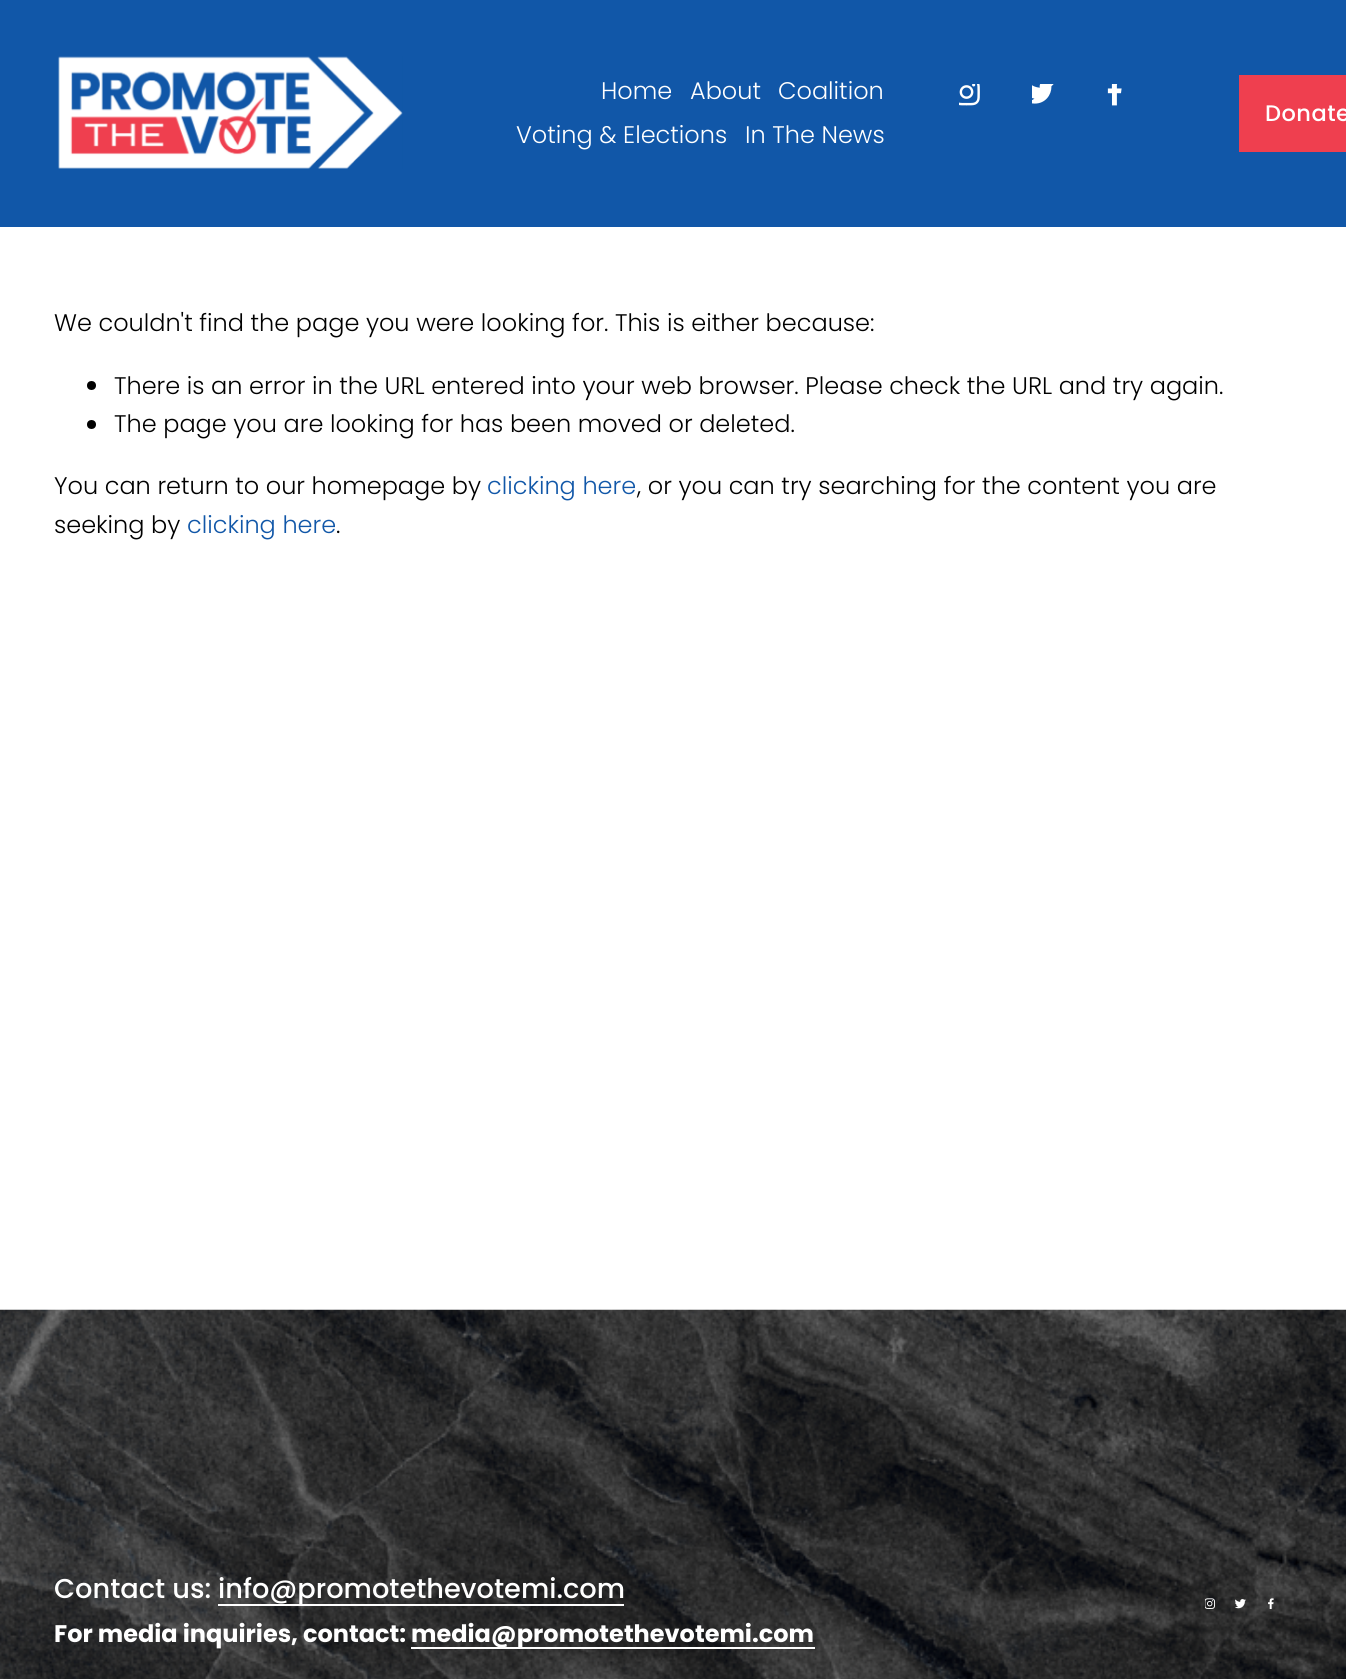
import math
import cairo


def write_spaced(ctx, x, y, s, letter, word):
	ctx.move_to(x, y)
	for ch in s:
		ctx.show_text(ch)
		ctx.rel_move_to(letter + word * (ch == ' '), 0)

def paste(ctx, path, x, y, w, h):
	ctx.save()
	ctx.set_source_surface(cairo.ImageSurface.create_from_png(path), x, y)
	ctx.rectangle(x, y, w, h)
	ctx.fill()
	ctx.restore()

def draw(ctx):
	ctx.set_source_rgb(1, 1, 1)
	ctx.paint()
	ctx.set_source_rgb(0.067, 0.341, 0.659)
	ctx.rectangle(0, 0, 1346, 227)
	ctx.fill()
	paste(ctx, 'media/1.png', 58, 56, 345, 113)
	ctx.select_font_face('Poppins Light')
	ctx.set_font_size(24)
	ctx.set_source_rgb(1, 1, 1)
	for x, y, s in [
		(601, 99, 'Home'),
		(690, 99, 'About'),
		(778, 99, 'Coalition'),
		(516, 143, 'Voting & Elections'),
		(745, 143, 'In The News'),
	]:
		ctx.move_to(x, y)
		ctx.show_text(s)
	paste(ctx, 'media/2.png', 959, 84, 21, 22)
	paste(ctx, 'media/3.png', 1032, 84, 22, 20)
	paste(ctx, 'media/4.png', 1107, 84, 15, 22)
	ctx.set_source_rgb(0.937, 0.247, 0.31)
	ctx.rectangle(1239, 75, 107, 77)
	ctx.fill()
	ctx.select_font_face('Poppins Medium')
	ctx.set_font_size(22.5)
	ctx.set_source_rgb(1, 1, 1)
	write_spaced(ctx, 1265, 121, 'Donate', 0.5, 0)
	ctx.select_font_face('Poppins Light')
	ctx.set_font_size(24)
	ctx.set_source_rgb(0, 0, 0)
	ctx.move_to(54, 331)
	ctx.show_text('We couldn\'t find the page you were looking for. This is either because:')
	ctx.new_path()
	ctx.arc(91.5, 385.5, 4.5, 0, 2 * math.pi)
	ctx.fill()
	ctx.move_to(114, 394)
	ctx.show_text('There is an error in the URL entered into your web browser. Please check the URL and try again.')
	ctx.new_path()
	ctx.arc(91.5, 424.5, 4.5, 0, 2 * math.pi)
	ctx.fill()
	ctx.move_to(114, 432)
	ctx.show_text('The page you are looking for has been moved or deleted.')
	ctx.move_to(54, 494)
	ctx.show_text('You can return to our homepage by')
	ctx.set_source_rgb(0.067, 0.341, 0.659)
	ctx.move_to(487, 494)
	ctx.show_text('clicking here')
	ctx.set_source_rgb(0, 0, 0)
	ctx.move_to(637, 494)
	ctx.show_text(', or you can try searching for the content you are')
	ctx.move_to(54, 533)
	ctx.show_text('seeking by')
	ctx.set_source_rgb(0.067, 0.341, 0.659)
	ctx.move_to(187, 533)
	ctx.show_text('clicking here')
	ctx.set_source_rgb(0, 0, 0)
	ctx.move_to(336, 533)
	ctx.show_text('.')
	paste(ctx, 'media/5.png', 0, 1309, 1346, 370)
	ctx.select_font_face('Poppins Medium')
	ctx.set_font_size(27.25)
	ctx.set_source_rgb(1, 1, 1)
	ctx.move_to(54, 1598)
	ctx.show_text('Contact us:')
	ctx.rectangle(218, 1604, 406, 2)
	ctx.fill()
	ctx.move_to(218, 1598)
	ctx.show_text('info@promotethevotemi.com')
	paste(ctx, 'media/6.png', 1205, 1598, 11, 11)
	paste(ctx, 'media/7.png', 1235, 1599, 11, 10)
	paste(ctx, 'media/8.png', 1268, 1598, 6, 11)
	ctx.select_font_face('Poppins', cairo.FONT_SLANT_NORMAL, cairo.FONT_WEIGHT_BOLD)
	ctx.set_font_size(24)
	ctx.move_to(54, 1642)
	ctx.show_text('For media inquiries, contact:')
	ctx.rectangle(411, 1647, 404, 2)
	ctx.fill()
	ctx.move_to(411, 1642)
	ctx.show_text('media@promotethevotemi.com')


surface = cairo.ImageSurface(cairo.FORMAT_RGB24, 1346, 1679)
ctx = cairo.Context(surface)
options = cairo.FontOptions()
options.set_hint_metrics(cairo.HINT_METRICS_OFF)
options.set_hint_style(cairo.HINT_STYLE_NONE)
ctx.set_font_options(options)
ctx.set_miter_limit(4)
draw(ctx)
surface.write_to_png('image.png')
